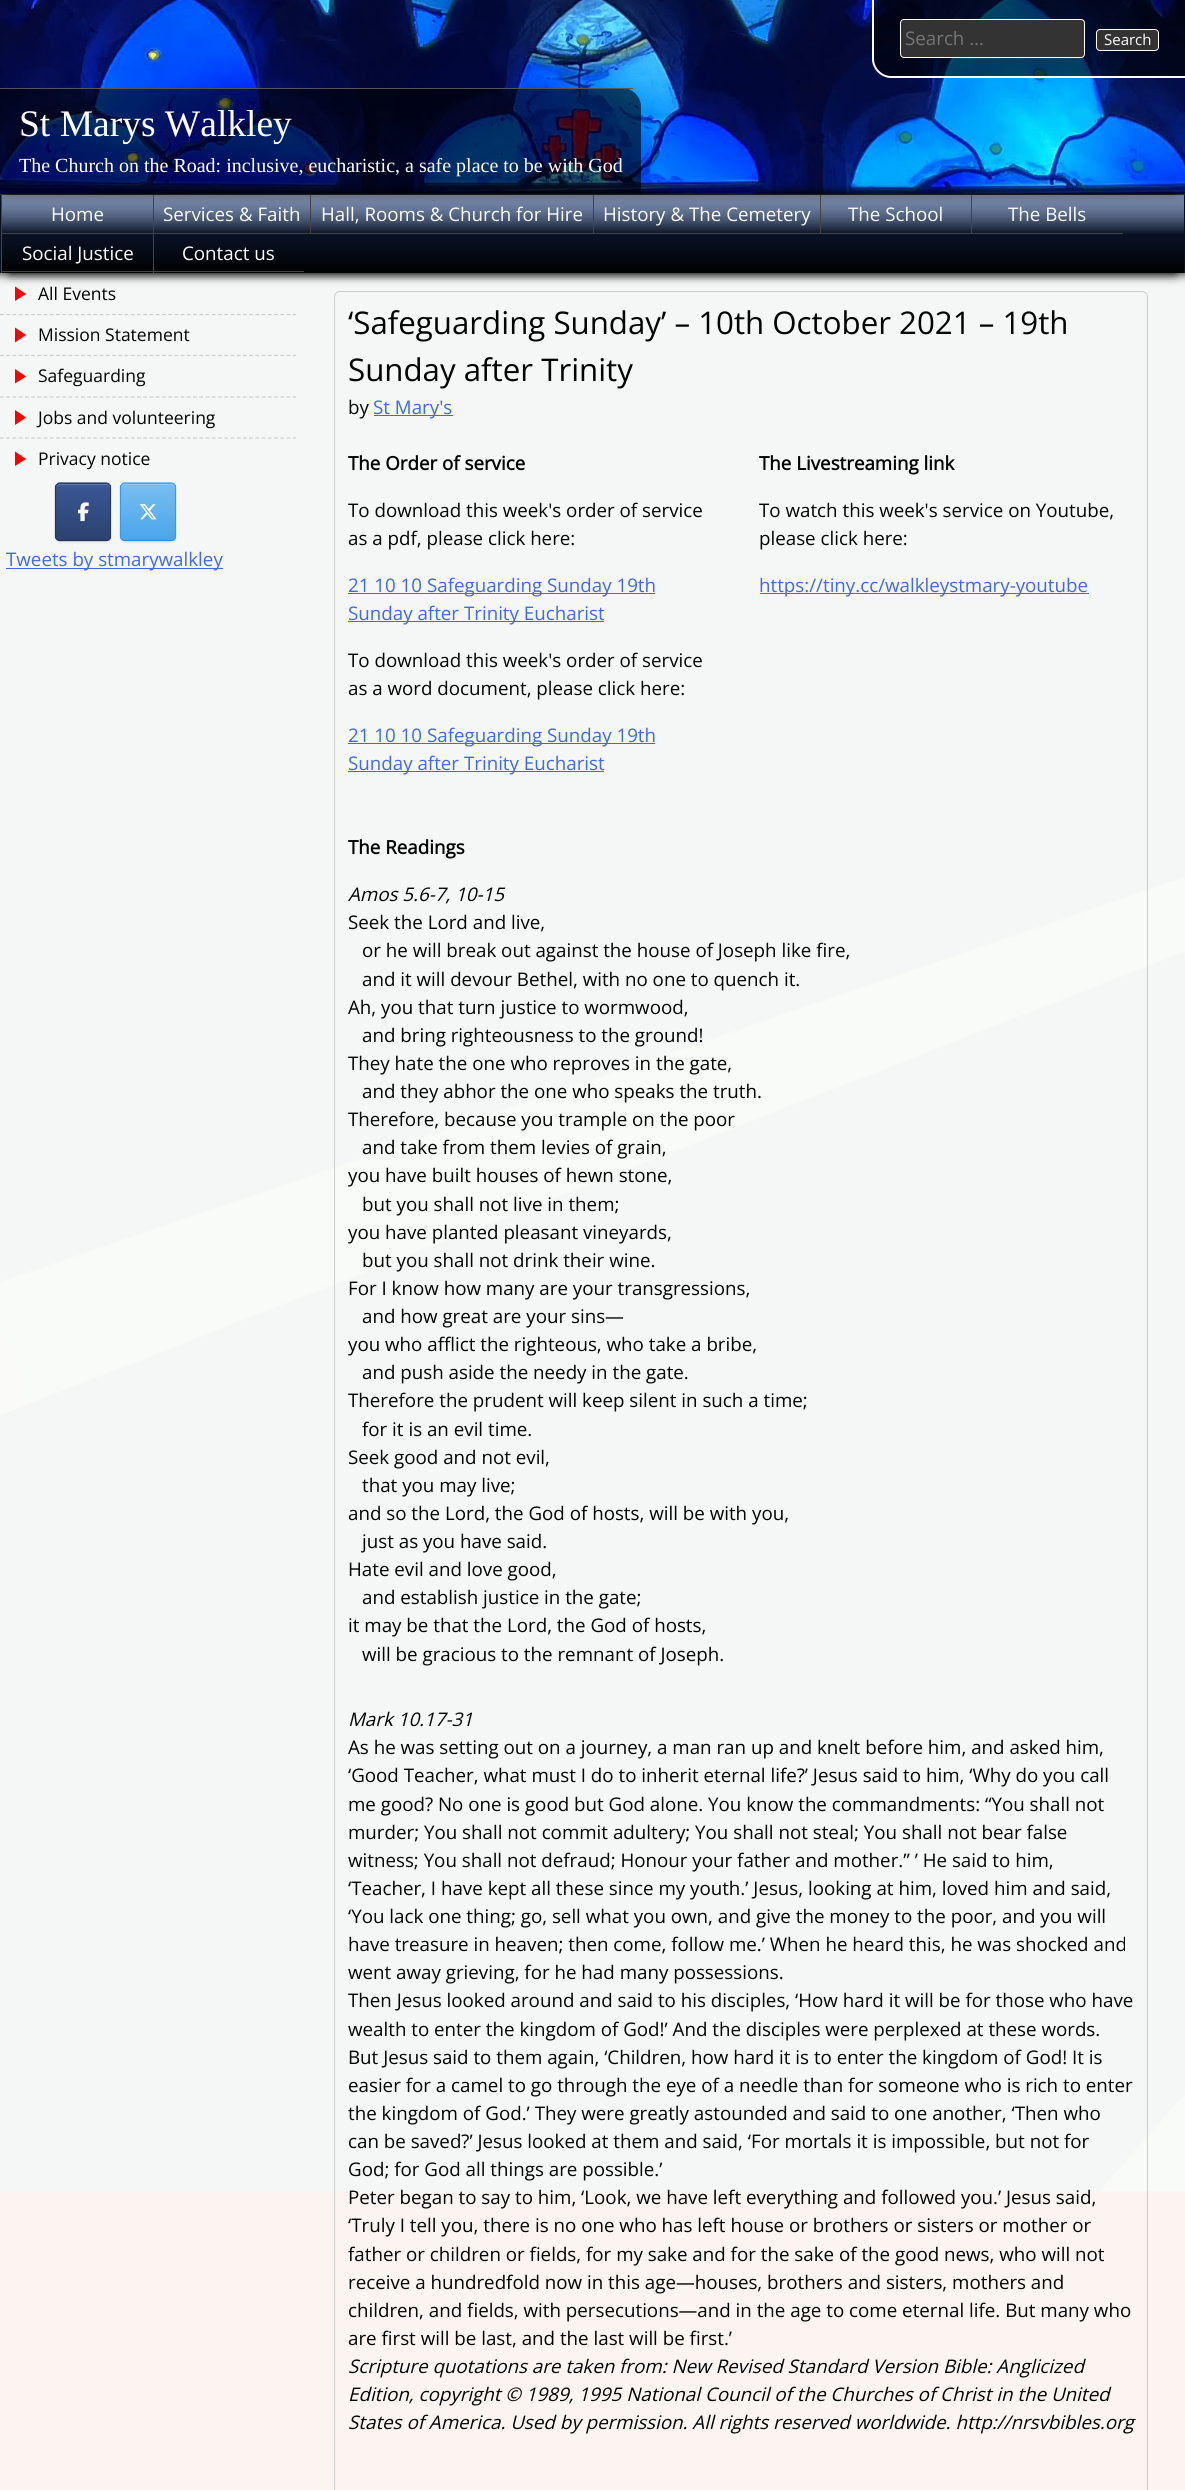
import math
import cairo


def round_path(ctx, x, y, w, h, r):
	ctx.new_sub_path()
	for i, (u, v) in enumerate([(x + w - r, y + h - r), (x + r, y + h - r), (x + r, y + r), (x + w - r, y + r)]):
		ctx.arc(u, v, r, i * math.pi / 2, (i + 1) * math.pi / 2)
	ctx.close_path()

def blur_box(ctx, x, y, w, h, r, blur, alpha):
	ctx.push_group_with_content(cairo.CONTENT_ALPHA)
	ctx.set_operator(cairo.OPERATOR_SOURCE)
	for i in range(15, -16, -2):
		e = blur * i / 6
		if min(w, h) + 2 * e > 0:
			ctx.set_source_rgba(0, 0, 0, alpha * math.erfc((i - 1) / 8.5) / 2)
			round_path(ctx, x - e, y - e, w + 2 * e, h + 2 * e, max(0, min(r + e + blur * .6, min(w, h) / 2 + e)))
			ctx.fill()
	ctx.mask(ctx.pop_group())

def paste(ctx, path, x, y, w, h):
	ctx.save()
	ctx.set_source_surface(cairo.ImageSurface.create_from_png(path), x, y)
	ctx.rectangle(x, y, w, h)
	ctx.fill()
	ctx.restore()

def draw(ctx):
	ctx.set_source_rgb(0.671, 0.106, 0.259)
	ctx.paint()
	paste(ctx, 'media/1.png', 0, 193, 1185, 1999)
	ctx.save()
	ctx.rectangle(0, 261, 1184, 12)
	ctx.clip()
	ctx.set_source_rgb(0, 0, 0)
	blur_box(ctx, -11, 271, 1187, 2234, 0, 5, 0.8)
	ctx.restore()
	ctx.save()
	ctx.rectangle(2, 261, 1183, 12)
	ctx.clip()
	ctx.set_source_rgb(0, 0, 0)
	blur_box(ctx, 9, 271, 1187, 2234, 0, 5, 0.8)
	ctx.restore()
	gradient = cairo.LinearGradient(593, 0, 593, 273)
	gradient.add_color_stop_rgba(0, 0, 0, 0, 0.8)
	gradient.add_color_stop_rgba(1, 0, 0, 0, 0)
	ctx.set_source(gradient)
	ctx.rectangle(0, 193, 1185, 73)
	ctx.fill()
	ctx.set_source_rgb(0, 0, 0)
	blur_box(ctx, -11, -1, 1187, 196, 0, 5, 0.8)
	blur_box(ctx, 9, -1, 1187, 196, 0, 5, 0.8)
	paste(ctx, 'media/2.png', 0, 0, 1185, 194)
	ctx.set_source_rgba(0, 0, 0, 0.6)
	ctx.new_path()
	ctx.move_to(873, 0)
	ctx.line_to(1185, 0)
	ctx.line_to(1185, 78)
	ctx.line_to(892, 78)
	ctx.curve_to(881.5, 78, 873, 69.5, 873, 59)
	ctx.close_path()
	ctx.fill()
	ctx.set_source_rgb(1, 1, 1)
	ctx.set_fill_rule(cairo.FILL_RULE_EVEN_ODD)
	ctx.new_path()
	ctx.move_to(872, 0)
	ctx.line_to(1185, 0)
	ctx.line_to(1185, 78)
	ctx.line_to(891, 78)
	ctx.curve_to(881, 78, 872, 69, 872, 59)
	ctx.close_path()
	ctx.move_to(874, 0)
	ctx.line_to(1185, 0)
	ctx.line_to(1185, 76)
	ctx.line_to(891, 76)
	ctx.curve_to(882, 76, 874, 68, 874, 59)
	ctx.close_path()
	ctx.fill()
	ctx.set_source_rgb(0.2, 0.2, 0.2)
	round_path(ctx, 900.5, 19.5, 184, 38, 3.5)
	ctx.fill_preserve()
	ctx.set_source_rgb(1, 1, 1)
	ctx.set_line_width(1)
	ctx.stroke()
	ctx.select_font_face('Open Sans')
	ctx.set_font_size(18.75)
	ctx.set_source_rgb(0.459, 0.459, 0.459)
	ctx.move_to(905, 45)
	ctx.show_text('Search …')
	ctx.set_source_rgb(0.2, 0.2, 0.2)
	round_path(ctx, 1096.5, 29.5, 62, 21, 3.5)
	ctx.fill_preserve()
	ctx.set_source_rgb(1, 1, 1)
	ctx.stroke()
	ctx.set_font_size(15)
	ctx.move_to(1104, 45)
	ctx.show_text('Search')
	ctx.set_source_rgb(0.333, 0.333, 0.333)
	ctx.rectangle(0, 194, 1185, 1)
	ctx.fill()
	ctx.set_source_rgba(1, 1, 0.98, 0.95)
	ctx.rectangle(0, 273, 1185, 2217)
	ctx.fill()
	ctx.save()
	ctx.new_path()
	ctx.move_to(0, 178)
	ctx.line_to(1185, 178)
	ctx.line_to(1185, 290)
	ctx.line_to(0, 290)
	ctx.close_path()
	ctx.move_to(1, 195)
	ctx.line_to(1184, 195)
	ctx.line_to(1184, 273)
	ctx.line_to(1, 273)
	ctx.close_path()
	ctx.clip()
	ctx.set_source_rgb(0, 0, 0)
	blur_box(ctx, -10, 194, 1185, 80, 0, 5, 0.8)
	blur_box(ctx, 10, 194, 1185, 80, 0, 5, 0.8)
	ctx.restore()
	ctx.set_source_rgba(0, 0, 0, 0.6)
	ctx.new_path()
	ctx.move_to(0, 88)
	ctx.line_to(622, 88)
	ctx.curve_to(632.5, 88, 641, 96.5, 641, 107)
	ctx.line_to(641, 194)
	ctx.line_to(0, 194)
	ctx.close_path()
	ctx.fill()
	ctx.set_source_rgb(0.333, 0.333, 0.333)
	ctx.rectangle(0, 88, 633, 1)
	ctx.fill()
	ctx.select_font_face('Liberation Serif')
	ctx.set_font_size(37.5)
	ctx.set_source_rgb(1, 1, 1)
	ctx.move_to(19, 136)
	ctx.show_text('St Marys Walkley')
	ctx.set_font_size(20)
	ctx.move_to(19, 172)
	ctx.show_text('The Church on the Road: inclusive, eucharistic, a safe place to be with God')
	gradient = cairo.LinearGradient(593, 195, 593, 273)
	gradient.add_color_stop_rgba(0, 1, 1, 1, 0.4)
	gradient.add_color_stop_rgba(0.5, 0, 0, 0, 0.75)
	gradient.add_color_stop_rgba(1, 0, 0, 0, 1)
	ctx.set_source(gradient)
	ctx.rectangle(2, 195, 1182, 78)
	ctx.fill()
	ctx.set_source_rgb(0.267, 0.267, 0.267)
	ctx.rectangle(1, 233, 1122, 1)
	ctx.fill()
	ctx.rectangle(1, 195, 1, 39)
	ctx.fill()
	ctx.select_font_face('Open Sans')
	ctx.set_font_size(18.75)
	ctx.set_source_rgb(1, 1, 1)
	ctx.move_to(51, 221)
	ctx.show_text('Home')
	ctx.set_source_rgb(0.267, 0.267, 0.267)
	ctx.rectangle(153, 195, 1, 39)
	ctx.fill()
	ctx.set_source_rgb(1, 1, 1)
	ctx.move_to(163, 221)
	ctx.show_text('Services & Faith')
	ctx.set_source_rgb(0.267, 0.267, 0.267)
	ctx.rectangle(310, 195, 1, 39)
	ctx.fill()
	ctx.set_source_rgb(1, 1, 1)
	ctx.move_to(321, 221)
	ctx.show_text('Hall, Rooms & Church for Hire')
	ctx.set_source_rgb(0.267, 0.267, 0.267)
	ctx.rectangle(593, 195, 1, 39)
	ctx.fill()
	ctx.set_source_rgb(1, 1, 1)
	ctx.move_to(603, 221)
	ctx.show_text('History & The Cemetery')
	ctx.set_source_rgb(0.267, 0.267, 0.267)
	ctx.rectangle(820, 195, 1, 39)
	ctx.fill()
	ctx.set_source_rgb(1, 1, 1)
	ctx.move_to(848, 221)
	ctx.show_text('The School')
	ctx.set_source_rgb(0.267, 0.267, 0.267)
	ctx.rectangle(971, 195, 1, 39)
	ctx.fill()
	ctx.set_source_rgb(1, 1, 1)
	ctx.move_to(1008, 221)
	ctx.show_text('The Bells')
	ctx.set_source_rgb(0.267, 0.267, 0.267)
	ctx.rectangle(1, 271, 303, 1)
	ctx.fill()
	ctx.rectangle(1, 234, 1, 39)
	ctx.fill()
	ctx.set_source_rgb(1, 1, 1)
	ctx.move_to(22, 260)
	ctx.show_text('Social Justice')
	ctx.set_source_rgb(0.267, 0.267, 0.267)
	ctx.rectangle(153, 234, 1, 39)
	ctx.fill()
	ctx.set_source_rgb(1, 1, 1)
	ctx.move_to(182, 260)
	ctx.show_text('Contact us')
	ctx.set_source_rgb(1, 0, 0)
	ctx.set_fill_rule(cairo.FILL_RULE_WINDING)
	ctx.new_path()
	ctx.move_to(15, 286.5)
	ctx.line_to(26, 294)
	ctx.line_to(15, 301)
	ctx.close_path()
	ctx.fill()
	ctx.set_font_size(17.5)
	ctx.set_source_rgb(0, 0, 0)
	ctx.move_to(38, 300)
	ctx.show_text('All Events')
	ctx.new_path()
	ctx.move_to(0, 314.5)
	ctx.line_to(296, 314.5)
	ctx.set_source_rgb(0.8, 0.8, 0.8)
	ctx.set_line_width(1.2)
	ctx.set_dash([3.75, 2.48])
	ctx.stroke()
	ctx.set_source_rgb(1, 0, 0)
	ctx.new_path()
	ctx.move_to(15, 327.5)
	ctx.line_to(26, 335)
	ctx.line_to(15, 342.5)
	ctx.close_path()
	ctx.fill()
	ctx.set_source_rgb(0, 0, 0)
	ctx.move_to(38, 341)
	ctx.show_text('Mission Statement')
	ctx.new_path()
	ctx.move_to(0, 355.5)
	ctx.line_to(296, 355.5)
	ctx.set_source_rgb(0.8, 0.8, 0.8)
	ctx.stroke()
	ctx.set_source_rgb(1, 0, 0)
	ctx.new_path()
	ctx.move_to(15, 369)
	ctx.line_to(26, 376.5)
	ctx.line_to(15, 383.5)
	ctx.close_path()
	ctx.fill()
	ctx.set_source_rgb(0, 0, 0)
	ctx.move_to(38, 382)
	ctx.show_text('Safeguarding')
	ctx.new_path()
	ctx.move_to(0, 397)
	ctx.line_to(296, 397)
	ctx.set_source_rgb(0.8, 0.8, 0.8)
	ctx.stroke()
	ctx.set_source_rgb(1, 0, 0)
	ctx.new_path()
	ctx.move_to(15, 410)
	ctx.line_to(26, 417.5)
	ctx.line_to(15, 425)
	ctx.close_path()
	ctx.fill()
	ctx.set_source_rgb(0, 0, 0)
	ctx.move_to(38, 424)
	ctx.show_text('Jobs and volunteering')
	ctx.new_path()
	ctx.move_to(0, 438)
	ctx.line_to(296, 438)
	ctx.set_source_rgb(0.8, 0.8, 0.8)
	ctx.stroke()
	ctx.set_source_rgb(1, 0, 0)
	ctx.new_path()
	ctx.move_to(15, 451.5)
	ctx.line_to(26, 459)
	ctx.line_to(15, 466)
	ctx.close_path()
	ctx.fill()
	ctx.set_source_rgb(0, 0, 0)
	ctx.move_to(38, 465)
	ctx.show_text('Privacy notice')
	ctx.set_source_rgb(0, 0, 0)
	blur_box(ctx, 55, 484, 56, 59, 5, 1, 0.07)
	ctx.save()
	round_path(ctx, 55, 483, 56, 58, 5)
	ctx.clip()
	gradient = cairo.LinearGradient(56, 484, 56, 428)
	gradient.add_color_stop_rgba(0, 0.173, 0.259, 0.439, 1)
	gradient.add_color_stop_rgba(1, 0.227, 0.341, 0.584, 1)
	ctx.set_source(gradient)
	ctx.rectangle(55, 483, 56, 1)
	ctx.fill()
	gradient = cairo.LinearGradient(56, 540, 56, 484)
	gradient.add_color_stop_rgba(0, 0.173, 0.259, 0.439, 1)
	gradient.add_color_stop_rgba(1, 0.227, 0.341, 0.584, 1)
	ctx.set_source(gradient)
	ctx.rectangle(55, 484, 56, 56)
	ctx.fill()
	ctx.restore()
	ctx.set_source_rgb(0.38, 0.475, 0.667)
	ctx.new_path()
	ctx.move_to(60, 485)
	ctx.line_to(107, 485)
	ctx.curve_to(108, 485, 110, 487, 110, 488)
	ctx.curve_to(110, 486, 108, 484, 106, 484)
	ctx.line_to(60, 484)
	ctx.curve_to(58, 484, 56, 486, 56, 488)
	ctx.curve_to(56, 487, 58, 485, 60, 485)
	ctx.close_path()
	ctx.fill()
	ctx.new_path()
	ctx.move_to(57, 484.5)
	ctx.curve_to(57.5, 483.5, 58.5, 483, 59.5, 483)
	ctx.line_to(106.5, 483)
	ctx.curve_to(107.5, 483, 108.5, 483.5, 109.5, 484.5)
	ctx.set_source_rgb(0.153, 0.231, 0.396)
	ctx.set_dash([])
	ctx.stroke()
	ctx.new_path()
	ctx.move_to(109.5, 484.5)
	ctx.curve_to(110, 485, 110.5, 486, 110.5, 487)
	ctx.line_to(110.5, 536.5)
	ctx.curve_to(110.5, 537.5, 110, 538.5, 109.5, 539.5)
	ctx.set_source_rgb(0.145, 0.216, 0.369)
	ctx.stroke()
	ctx.new_path()
	ctx.move_to(109.5, 539.5)
	ctx.curve_to(108.5, 540, 107.5, 540.5, 106.5, 540.5)
	ctx.line_to(59.5, 540.5)
	ctx.curve_to(58.5, 540.5, 57.5, 540, 57, 539.5)
	ctx.set_source_rgb(0.125, 0.188, 0.325)
	ctx.stroke()
	ctx.new_path()
	ctx.move_to(57, 539.5)
	ctx.curve_to(56, 538.5, 55.5, 537.5, 55.5, 536.5)
	ctx.line_to(55.5, 487)
	ctx.curve_to(55.5, 486, 56, 485, 57, 484.5)
	ctx.set_source_rgb(0.145, 0.216, 0.369)
	ctx.stroke()
	paste(ctx, 'media/3.png', 78, 502, 11, 20)
	ctx.set_source_rgb(0, 0, 0)
	blur_box(ctx, 120, 484, 56, 59, 5, 1, 0.07)
	ctx.save()
	round_path(ctx, 120, 483, 56, 58, 5)
	ctx.clip()
	gradient = cairo.LinearGradient(121, 484, 121, 428)
	gradient.add_color_stop_rgba(0, 0.29, 0.651, 0.925, 1)
	gradient.add_color_stop_rgba(1, 0.471, 0.741, 0.945, 1)
	ctx.set_source(gradient)
	ctx.rectangle(120, 483, 56, 1)
	ctx.fill()
	gradient = cairo.LinearGradient(121, 540, 121, 484)
	gradient.add_color_stop_rgba(0, 0.29, 0.651, 0.925, 1)
	gradient.add_color_stop_rgba(1, 0.471, 0.741, 0.945, 1)
	ctx.set_source(gradient)
	ctx.rectangle(120, 484, 56, 56)
	ctx.fill()
	ctx.restore()
	ctx.set_source_rgb(0.576, 0.792, 0.957)
	ctx.new_path()
	ctx.move_to(125, 485)
	ctx.line_to(172, 485)
	ctx.curve_to(173, 485, 175, 487, 175, 488)
	ctx.curve_to(175, 486, 173, 484, 171, 484)
	ctx.line_to(125, 484)
	ctx.curve_to(123, 484, 121, 486, 121, 488)
	ctx.curve_to(121, 487, 123, 485, 125, 485)
	ctx.close_path()
	ctx.fill()
	ctx.new_path()
	ctx.move_to(122, 484.5)
	ctx.curve_to(122.5, 483.5, 123.5, 483, 124.5, 483)
	ctx.line_to(171.5, 483)
	ctx.curve_to(172.5, 483, 173.5, 483.5, 174.5, 484.5)
	ctx.set_source_rgb(0.235, 0.627, 0.922)
	ctx.stroke()
	ctx.new_path()
	ctx.move_to(174.5, 484.5)
	ctx.curve_to(175, 485, 175.5, 486, 175.5, 487)
	ctx.line_to(175.5, 536.5)
	ctx.curve_to(175.5, 537.5, 175, 538.5, 174.5, 539.5)
	ctx.set_source_rgb(0.2, 0.608, 0.918)
	ctx.stroke()
	ctx.new_path()
	ctx.move_to(174.5, 539.5)
	ctx.curve_to(173.5, 540, 172.5, 540.5, 171.5, 540.5)
	ctx.line_to(124.5, 540.5)
	ctx.curve_to(123.5, 540.5, 122.5, 540, 122, 539.5)
	ctx.set_source_rgb(0.145, 0.58, 0.91)
	ctx.stroke()
	ctx.new_path()
	ctx.move_to(122, 539.5)
	ctx.curve_to(121, 538.5, 120.5, 537.5, 120.5, 536.5)
	ctx.line_to(120.5, 487)
	ctx.curve_to(120.5, 486, 121, 485, 122, 484.5)
	ctx.set_source_rgb(0.2, 0.608, 0.918)
	ctx.stroke()
	paste(ctx, 'media/4.png', 139, 504, 18, 16)
	ctx.set_source_rgb(0.255, 0.412, 0.882)
	ctx.rectangle(6, 568, 217, 1)
	ctx.fill()
	ctx.set_font_size(18.75)
	ctx.move_to(6, 566)
	ctx.show_text('Tweets by stmarywalkley')
	round_path(ctx, 334.5, 291.5, 813, 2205, 5.5)
	ctx.set_source_rgb(0.8, 0.8, 0.8)
	ctx.set_line_width(1)
	ctx.stroke()
	ctx.set_font_size(31.25)
	ctx.set_source_rgb(0, 0, 0)
	ctx.move_to(348, 334)
	ctx.show_text('‘Safeguarding Sunday’ – 10th October 2021 – 19th')
	ctx.move_to(348, 381)
	ctx.show_text('Sunday after Trinity')
	ctx.set_font_size(18.75)
	ctx.move_to(348, 414)
	ctx.show_text('by')
	ctx.set_source_rgb(0.255, 0.412, 0.882)
	ctx.rectangle(374, 415, 79, 1)
	ctx.fill()
	ctx.move_to(373, 414)
	ctx.show_text('St Mary\'s')
	ctx.select_font_face('Open Sans', cairo.FONT_SLANT_NORMAL, cairo.FONT_WEIGHT_BOLD)
	ctx.set_source_rgb(0, 0, 0)
	ctx.move_to(348, 470)
	ctx.show_text('The Order of service')
	ctx.select_font_face('Open Sans')
	ctx.move_to(348, 517)
	ctx.show_text('To download this week\'s order of service')
	ctx.move_to(348, 545)
	ctx.show_text('as a pdf, please click here:')
	ctx.set_source_rgb(0.255, 0.412, 0.882)
	ctx.rectangle(348, 593, 307, 1)
	ctx.fill()
	ctx.move_to(348, 592)
	ctx.show_text('21 10 10 Safeguarding Sunday 19th')
	ctx.rectangle(348, 621, 256, 1)
	ctx.fill()
	ctx.move_to(348, 620)
	ctx.show_text('Sunday after Trinity Eucharist')
	ctx.set_source_rgb(0, 0, 0)
	ctx.move_to(348, 667)
	ctx.show_text('To download this week\'s order of service')
	ctx.move_to(348, 695)
	ctx.show_text('as a word document, please click here:')
	ctx.set_source_rgb(0.255, 0.412, 0.882)
	ctx.rectangle(348, 743, 307, 1)
	ctx.fill()
	ctx.move_to(348, 742)
	ctx.show_text('21 10 10 Safeguarding Sunday 19th')
	ctx.rectangle(348, 771, 256, 1)
	ctx.fill()
	ctx.move_to(348, 770)
	ctx.show_text('Sunday after Trinity Eucharist')
	ctx.select_font_face('Open Sans', cairo.FONT_SLANT_NORMAL, cairo.FONT_WEIGHT_BOLD)
	ctx.set_source_rgb(0, 0, 0)
	ctx.move_to(759, 470)
	ctx.show_text('The Livestreaming link')
	ctx.select_font_face('Open Sans')
	ctx.move_to(759, 517)
	ctx.show_text('To watch this week\'s service on Youtube,')
	ctx.move_to(759, 545)
	ctx.show_text('please click here:')
	ctx.set_source_rgb(0.255, 0.412, 0.882)
	ctx.rectangle(760, 593, 329, 1)
	ctx.fill()
	ctx.move_to(759, 592)
	ctx.show_text('https://tiny.cc/walkleystmary-youtube')
	ctx.select_font_face('Open Sans', cairo.FONT_SLANT_NORMAL, cairo.FONT_WEIGHT_BOLD)
	ctx.set_source_rgb(0, 0, 0)
	ctx.move_to(348, 854)
	ctx.show_text('The Readings')
	ctx.select_font_face('Open Sans', cairo.FONT_SLANT_ITALIC)
	ctx.move_to(348, 901)
	ctx.show_text('Amos 5.6-7, 10-15')
	ctx.select_font_face('Open Sans')
	for x, y, s in [
		(348, 929, 'Seek the Lord and live,'),
		(362, 957, 'or he will break out against the house of Joseph like fire,'),
		(362, 986, 'and it will devour Bethel, with no one to quench it.'),
		(348, 1014, 'Ah, you that turn justice to wormwood,'),
		(362, 1042, 'and bring righteousness to the ground!'),
		(348, 1070, 'They hate the one who reproves in the gate,'),
		(362, 1098, 'and they abhor the one who speaks the truth.'),
		(348, 1126, 'Therefore, because you trample on the poor'),
		(362, 1154, 'and take from them levies of grain,'),
		(348, 1182, 'you have built houses of hewn stone,'),
		(362, 1211, 'but you shall not live in them;'),
		(348, 1239, 'you have planted pleasant vineyards,'),
		(362, 1267, 'but you shall not drink their wine.'),
		(348, 1295, 'For I know how many are your transgressions,'),
		(362, 1323, 'and how great are your sins—'),
		(348, 1351, 'you who afflict the righteous, who take a bribe,'),
		(362, 1379, 'and push aside the needy in the gate.'),
		(348, 1407, 'Therefore the prudent will keep silent in such a time;'),
		(362, 1436, 'for it is an evil time.'),
		(348, 1464, 'Seek good and not evil,'),
		(362, 1492, 'that you may live;'),
		(348, 1520, 'and so the Lord, the God of hosts, will be with you,'),
		(362, 1548, 'just as you have said.'),
		(348, 1576, 'Hate evil and love good,'),
		(362, 1604, 'and establish justice in the gate;'),
		(348, 1632, 'it may be that the Lord, the God of hosts,'),
		(362, 1661, 'will be gracious to the remnant of Joseph.'),
	]:
		ctx.move_to(x, y)
		ctx.show_text(s)
	ctx.select_font_face('Open Sans', cairo.FONT_SLANT_ITALIC)
	ctx.move_to(348, 1726)
	ctx.show_text('Mark 10.17-31')
	ctx.select_font_face('Open Sans')
	for x, y, s in [
		(348, 1754, 'As he was setting out on a journey, a man ran up and knelt before him, and asked him,'),
		(348, 1782, '‘Good Teacher, what must I do to inherit eternal life?’ Jesus said to him, ‘Why do you call'),
		(348, 1811, 'me good? No one is good but God alone. You know the commandments: “You shall not'),
		(348, 1839, 'murder; You shall not commit adultery; You shall not steal; You shall not bear false'),
		(348, 1867, 'witness; You shall not defraud; Honour your father and mother.” ’ He said to him,'),
		(348, 1895, '‘Teacher, I have kept all these since my youth.’ Jesus, looking at him, loved him and said,'),
		(348, 1923, '‘You lack one thing; go, sell what you own, and give the money to the poor, and you will'),
		(348, 1951, 'have treasure in heaven; then come, follow me.’ When he heard this, he was shocked and'),
		(348, 1979, 'went away grieving, for he had many possessions.'),
		(348, 2007, 'Then Jesus looked around and said to his disciples, ‘How hard it will be for those who have'),
		(348, 2036, 'wealth to enter the kingdom of God!’ And the disciples were perplexed at these words.'),
		(348, 2064, 'But Jesus said to them again, ‘Children, how hard it is to enter the kingdom of God! It is'),
		(348, 2092, 'easier for a camel to go through the eye of a needle than for someone who is rich to enter'),
		(348, 2120, 'the kingdom of God.’ They were greatly astounded and said to one another, ‘Then who'),
		(348, 2148, 'can be saved?’ Jesus looked at them and said, ‘For mortals it is impossible, but not for'),
		(348, 2176, 'God; for God all things are possible.’'),
		(348, 2204, 'Peter began to say to him, ‘Look, we have left everything and followed you.’ Jesus said,'),
		(348, 2232, '‘Truly I tell you, there is no one who has left house or brothers or sisters or mother or'),
		(348, 2261, 'father or children or fields, for my sake and for the sake of the good news, who will not'),
		(348, 2289, 'receive a hundredfold now in this age—houses, brothers and sisters, mothers and'),
		(348, 2317, 'children, and fields, with persecutions—and in the age to come eternal life. But many who'),
		(348, 2345, 'are first will be last, and the last will be first.’'),
	]:
		ctx.move_to(x, y)
		ctx.show_text(s)
	ctx.select_font_face('Open Sans', cairo.FONT_SLANT_ITALIC)
	for x, y, s in [
		(348, 2373, 'Scripture quotations are taken from: New Revised Standard Version Bible: Anglicized'),
		(348, 2401, 'Edition, copyright © 1989, 1995 National Council of the Churches of Christ in the United'),
		(348, 2429, 'States of America. Used by permission. All rights reserved worldwide. http://nrsvbibles.org'),
	]:
		ctx.move_to(x, y)
		ctx.show_text(s)


surface = cairo.ImageSurface(cairo.FORMAT_RGB24, 1185, 2490)
ctx = cairo.Context(surface)
options = cairo.FontOptions()
options.set_hint_metrics(cairo.HINT_METRICS_OFF)
options.set_hint_style(cairo.HINT_STYLE_NONE)
ctx.set_font_options(options)
ctx.set_miter_limit(4)
draw(ctx)
surface.write_to_png('image.png')
